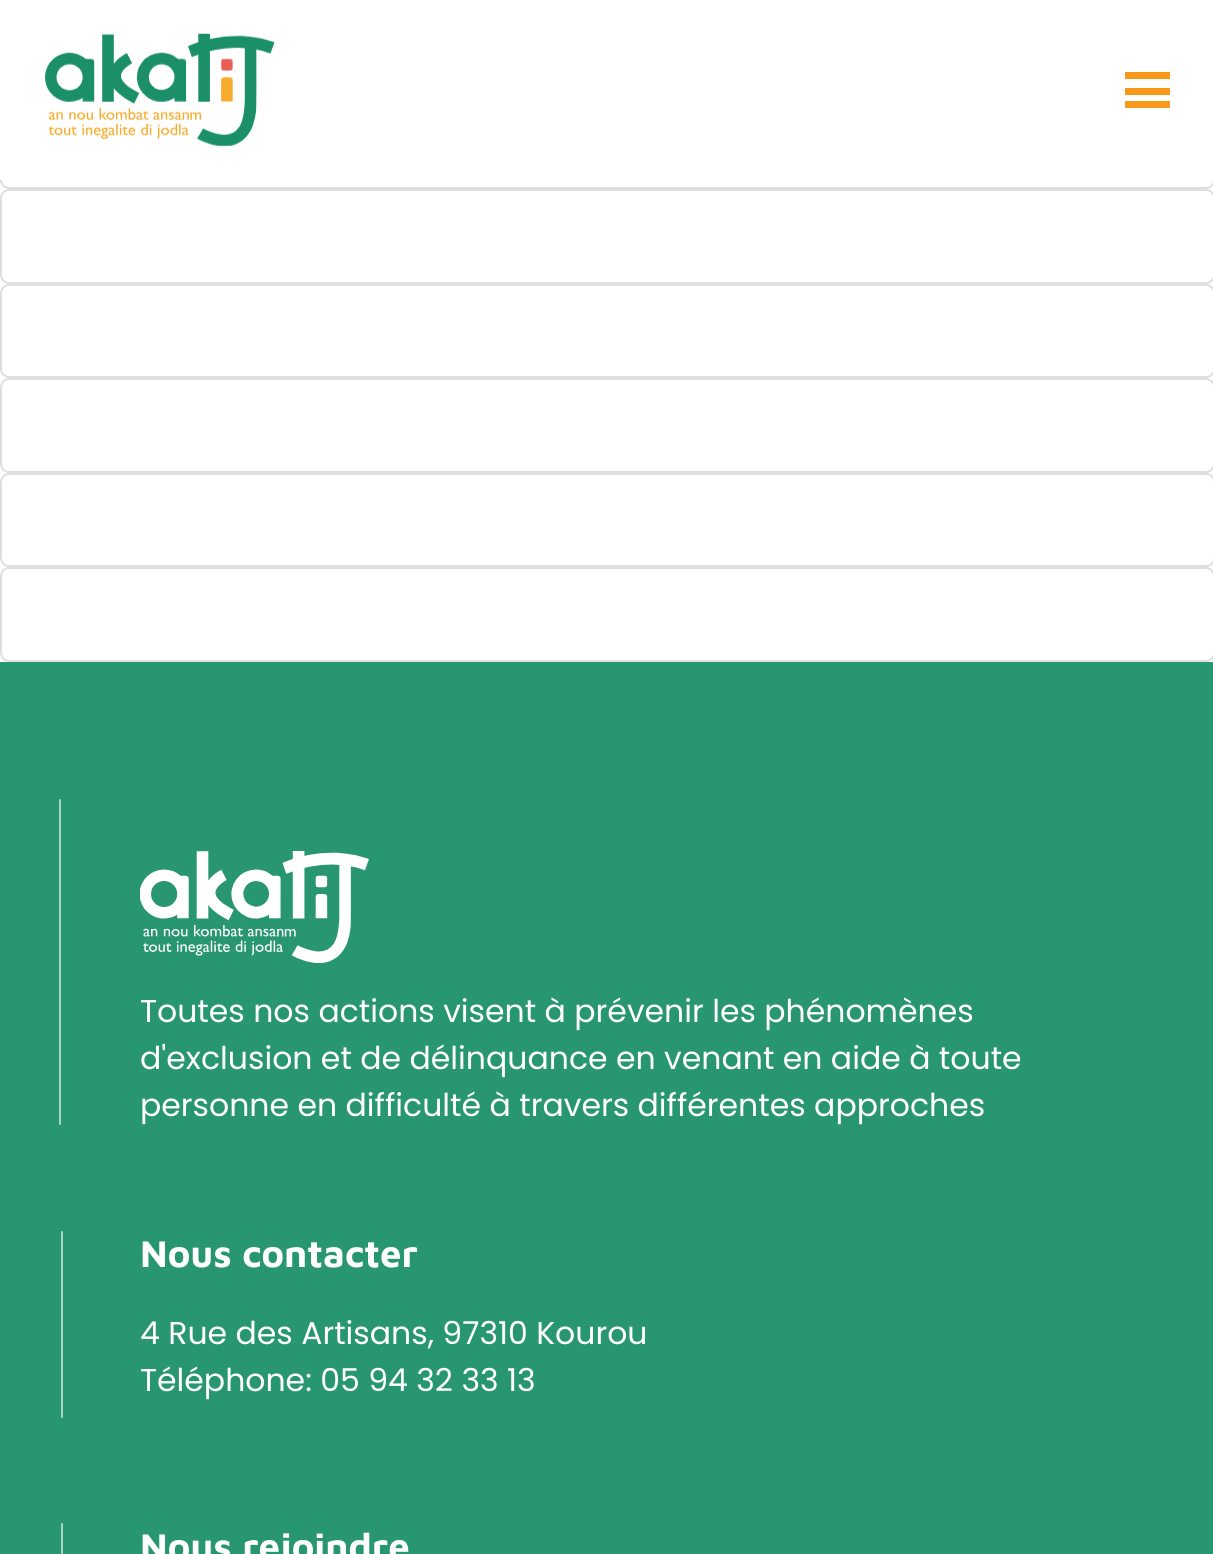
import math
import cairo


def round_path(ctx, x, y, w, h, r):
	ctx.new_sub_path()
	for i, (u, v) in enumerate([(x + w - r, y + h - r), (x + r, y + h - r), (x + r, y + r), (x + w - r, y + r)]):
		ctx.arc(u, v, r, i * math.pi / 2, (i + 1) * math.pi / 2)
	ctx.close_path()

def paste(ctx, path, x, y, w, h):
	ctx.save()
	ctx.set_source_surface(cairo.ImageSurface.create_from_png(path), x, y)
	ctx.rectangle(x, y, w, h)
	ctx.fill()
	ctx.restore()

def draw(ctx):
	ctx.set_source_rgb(1, 1, 1)
	ctx.paint()
	round_path(ctx, 1, 96, 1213, 92, 8)
	ctx.set_source_rgb(0.875, 0.875, 0.875)
	ctx.stroke()
	ctx.set_source_rgb(1, 1, 1)
	ctx.rectangle(0, 95, 1213, 85)
	ctx.fill()
	paste(ctx, 'media/1.png', 45, 33, 230, 114)
	ctx.set_source_rgb(0.976, 0.6, 0.098)
	ctx.rectangle(1125, 72, 45, 7)
	ctx.rectangle(1125, 88, 45, 7)
	ctx.rectangle(1125, 101, 45, 7)
	ctx.fill()
	round_path(ctx, 1, 190, 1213, 93, 8)
	ctx.set_source_rgb(0.875, 0.875, 0.875)
	ctx.stroke()
	round_path(ctx, 1, 285, 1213, 92, 8)
	ctx.stroke()
	round_path(ctx, 1, 379, 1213, 93, 8)
	ctx.stroke()
	round_path(ctx, 1, 474, 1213, 92, 8)
	ctx.stroke()
	round_path(ctx, 1, 568, 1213, 93, 8)
	ctx.stroke()
	ctx.set_source_rgb(0.161, 0.588, 0.447)
	ctx.rectangle(0, 662, 1213, 892)
	ctx.fill()
	ctx.set_source_rgb(0.671, 0.824, 0.784)
	round_path(ctx, 59, 799, 2, 326, 1)
	ctx.fill()
	paste(ctx, 'media/2.png', 140, 851, 229, 112)
	ctx.select_font_face('Poppins')
	ctx.set_font_size(31.5)
	ctx.set_source_rgb(1, 1, 1)
	for x, y, s in [
		(140, 1022, 'Toutes nos actions visent à prévenir les phénomènes'),
		(140, 1069, 'd\'exclusion et de délinquance en venant en aide à toute'),
		(140, 1116, 'personne en difficulté à travers différentes approches'),
	]:
		ctx.move_to(x, y)
		ctx.show_text(s)
	ctx.set_source_rgb(0.671, 0.824, 0.784)
	round_path(ctx, 61, 1231, 2, 187, 1)
	ctx.fill()
	ctx.select_font_face('Maven Pro', cairo.FONT_SLANT_NORMAL, cairo.FONT_WEIGHT_BOLD)
	ctx.set_font_size(38.25)
	ctx.set_source_rgb(1, 1, 1)
	ctx.move_to(140, 1267)
	ctx.show_text('Nous contacter')
	ctx.select_font_face('Poppins')
	ctx.set_font_size(31.5)
	ctx.move_to(140, 1344)
	ctx.show_text('4 Rue des Artisans, 97310 Kourou')
	ctx.move_to(140, 1391)
	ctx.show_text('Téléphone: 05 94 32 33 13')
	ctx.set_source_rgb(0.671, 0.824, 0.784)
	round_path(ctx, 61, 1523, 2, 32, 1)
	ctx.fill()
	ctx.select_font_face('Maven Pro', cairo.FONT_SLANT_NORMAL, cairo.FONT_WEIGHT_BOLD)
	ctx.set_font_size(38.25)
	ctx.set_source_rgb(1, 1, 1)
	ctx.move_to(140, 1560)
	ctx.show_text('Nous rejoindre')


surface = cairo.ImageSurface(cairo.FORMAT_RGB24, 1213, 1554)
ctx = cairo.Context(surface)
options = cairo.FontOptions()
options.set_hint_metrics(cairo.HINT_METRICS_OFF)
options.set_hint_style(cairo.HINT_STYLE_NONE)
ctx.set_font_options(options)
ctx.set_miter_limit(4)
draw(ctx)
surface.write_to_png('image.png')
